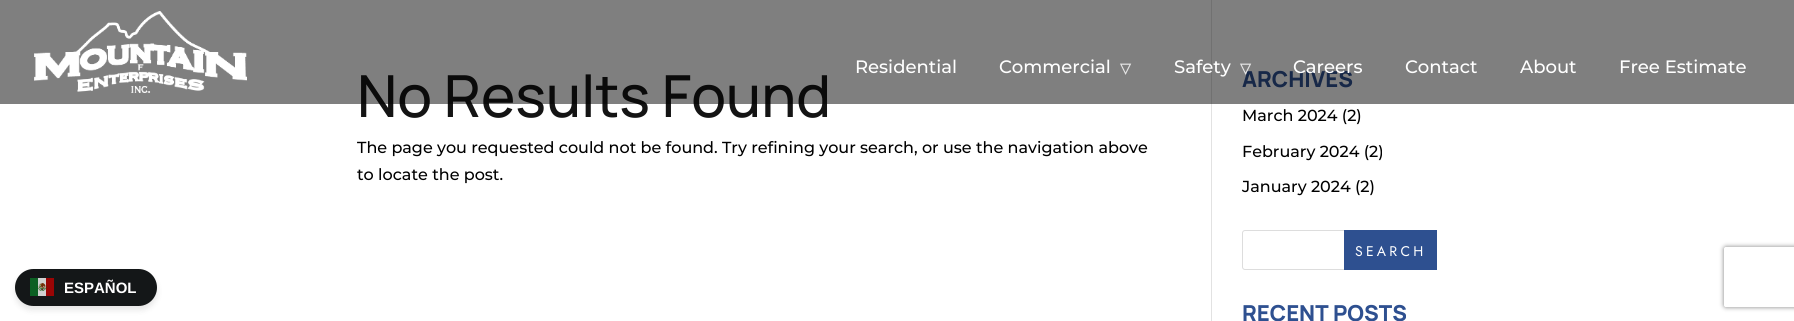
import math
import cairo


def write_spaced(ctx, x, y, s, letter, word):
	ctx.move_to(x, y)
	for ch in s:
		ctx.show_text(ch)
		ctx.rel_move_to(letter + word * (ch == ' '), 0)

def round_path(ctx, x, y, w, h, r):
	ctx.new_sub_path()
	for i, (u, v) in enumerate([(x + w - r, y + h - r), (x + r, y + h - r), (x + r, y + r), (x + w - r, y + r)]):
		ctx.arc(u, v, r, i * math.pi / 2, (i + 1) * math.pi / 2)
	ctx.close_path()

def blur_box(ctx, x, y, w, h, r, blur, alpha):
	ctx.push_group_with_content(cairo.CONTENT_ALPHA)
	ctx.set_operator(cairo.OPERATOR_SOURCE)
	for i in range(15, -16, -2):
		e = blur * i / 6
		if min(w, h) + 2 * e > 0:
			ctx.set_source_rgba(0, 0, 0, alpha * math.erfc((i - 1) / 8.5) / 2)
			round_path(ctx, x - e, y - e, w + 2 * e, h + 2 * e, max(0, min(r + e + blur * .6, min(w, h) / 2 + e)))
			ctx.fill()
	ctx.mask(ctx.pop_group())

def paste(ctx, path, x, y, w, h):
	ctx.save()
	ctx.set_source_surface(cairo.ImageSurface.create_from_png(path), x, y)
	ctx.rectangle(x, y, w, h)
	ctx.fill()
	ctx.restore()

def draw(ctx):
	ctx.set_source_rgb(1, 1, 1)
	ctx.paint()
	ctx.set_source_rgb(0, 0, 0)
	blur_box(ctx, 15, 273, 142, 37, 18.5, 3, 0.1)
	ctx.set_source_rgb(0.082, 0.09, 0.094)
	round_path(ctx, 15, 269, 142, 37, 18.5)
	ctx.fill()
	paste(ctx, 'media/1.png', 30, 278, 24, 18)
	ctx.select_font_face('Liberation Sans', cairo.FONT_SLANT_NORMAL, cairo.FONT_WEIGHT_BOLD)
	ctx.set_font_size(15)
	ctx.set_source_rgb(1, 1, 1)
	ctx.move_to(64, 293)
	ctx.show_text('ESPAÑOL')
	ctx.set_source_rgb(0.886, 0.886, 0.886)
	ctx.rectangle(1211, 0, 1, 321)
	ctx.fill()
	ctx.select_font_face('Manrope Medium')
	ctx.set_font_size(58)
	ctx.set_source_rgb(0.082, 0.082, 0.082)
	ctx.move_to(357, 117)
	ctx.show_text('No Results Found')
	ctx.select_font_face('Manrope ExtraBold')
	ctx.set_font_size(22)
	ctx.set_source_rgb(0.18, 0.314, 0.565)
	ctx.move_to(1242, 87)
	ctx.show_text('ARCHIVES')
	ctx.set_source_rgba(0, 0, 0, 0.5)
	ctx.rectangle(0, 0, 1794, 104)
	ctx.fill()
	paste(ctx, 'media/2.png', 34, 11, 213, 82)
	ctx.select_font_face('Montserrat Medium')
	ctx.set_font_size(18)
	ctx.set_source_rgb(1, 1, 1)
	ctx.move_to(855, 73)
	ctx.show_text('Residential')
	ctx.move_to(999, 73)
	ctx.show_text('Commercial')
	ctx.select_font_face('DejaVu Sans', cairo.FONT_SLANT_NORMAL, cairo.FONT_WEIGHT_BOLD)
	ctx.set_font_size(14)
	ctx.set_source_rgb(0.902, 0.902, 0.902)
	ctx.move_to(1120, 73)
	ctx.show_text('▽')
	ctx.select_font_face('Montserrat Medium')
	ctx.set_font_size(18)
	ctx.set_source_rgb(1, 1, 1)
	ctx.move_to(1174, 73)
	ctx.show_text('Safety')
	ctx.select_font_face('DejaVu Sans', cairo.FONT_SLANT_NORMAL, cairo.FONT_WEIGHT_BOLD)
	ctx.set_font_size(14)
	ctx.set_source_rgb(0.902, 0.902, 0.902)
	ctx.move_to(1240, 73)
	ctx.show_text('▽')
	ctx.select_font_face('Montserrat Medium')
	ctx.set_font_size(18)
	ctx.set_source_rgb(1, 1, 1)
	for x, y, s in [
		(1293, 73, 'Careers'),
		(1405, 73, 'Contact'),
		(1520, 73, 'About'),
		(1619, 73, 'Free Estimate'),
	]:
		ctx.move_to(x, y)
		ctx.show_text(s)
	ctx.set_font_size(16)
	ctx.set_source_rgb(0, 0, 0)
	for x, y, s in [
		(357, 153, 'The page you requested could not be found. Try refining your search, or use the navigation above'),
		(357, 180, 'to locate the post.'),
		(1242, 121, 'March 2024 (2)'),
		(1242, 157, 'February 2024 (2)'),
		(1242, 192, 'January 2024 (2)'),
	]:
		ctx.move_to(x, y)
		ctx.show_text(s)
	round_path(ctx, 1242.5, 230.5, 194, 39, 2.5)
	ctx.set_source_rgb(0.867, 0.867, 0.867)
	ctx.set_line_width(1)
	ctx.stroke()
	ctx.set_source_rgb(0.18, 0.314, 0.565)
	ctx.rectangle(1344, 230, 93, 40)
	ctx.fill()
	ctx.select_font_face('Jost')
	ctx.set_font_size(14)
	ctx.set_source_rgb(1, 1, 1)
	write_spaced(ctx, 1355, 256, 'SEARCH', 3.25, 0)
	ctx.select_font_face('Manrope ExtraBold')
	ctx.set_font_size(22)
	ctx.set_source_rgb(0.18, 0.314, 0.565)
	ctx.move_to(1242, 321)
	ctx.show_text('RECENT POSTS')
	ctx.save()
	ctx.set_fill_rule(cairo.FILL_RULE_EVEN_ODD)
	ctx.new_path()
	ctx.move_to(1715, 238)
	ctx.line_to(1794, 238)
	ctx.line_to(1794, 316)
	ctx.line_to(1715, 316)
	ctx.close_path()
	ctx.move_to(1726, 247)
	ctx.line_to(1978, 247)
	ctx.curve_to(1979, 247, 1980, 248, 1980, 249)
	ctx.line_to(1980, 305)
	ctx.curve_to(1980, 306, 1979, 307, 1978, 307)
	ctx.line_to(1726, 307)
	ctx.curve_to(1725, 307, 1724, 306, 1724, 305)
	ctx.line_to(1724, 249)
	ctx.curve_to(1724, 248, 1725, 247, 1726, 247)
	ctx.close_path()
	ctx.clip()
	ctx.set_source_rgb(0.502, 0.502, 0.502)
	blur_box(ctx, 1724, 247, 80, 60, 2, 2.5, 1)
	ctx.restore()


surface = cairo.ImageSurface(cairo.FORMAT_RGB24, 1794, 321)
ctx = cairo.Context(surface)
options = cairo.FontOptions()
options.set_hint_metrics(cairo.HINT_METRICS_OFF)
options.set_hint_style(cairo.HINT_STYLE_NONE)
ctx.set_font_options(options)
ctx.set_miter_limit(4)
draw(ctx)
surface.write_to_png('image.png')
